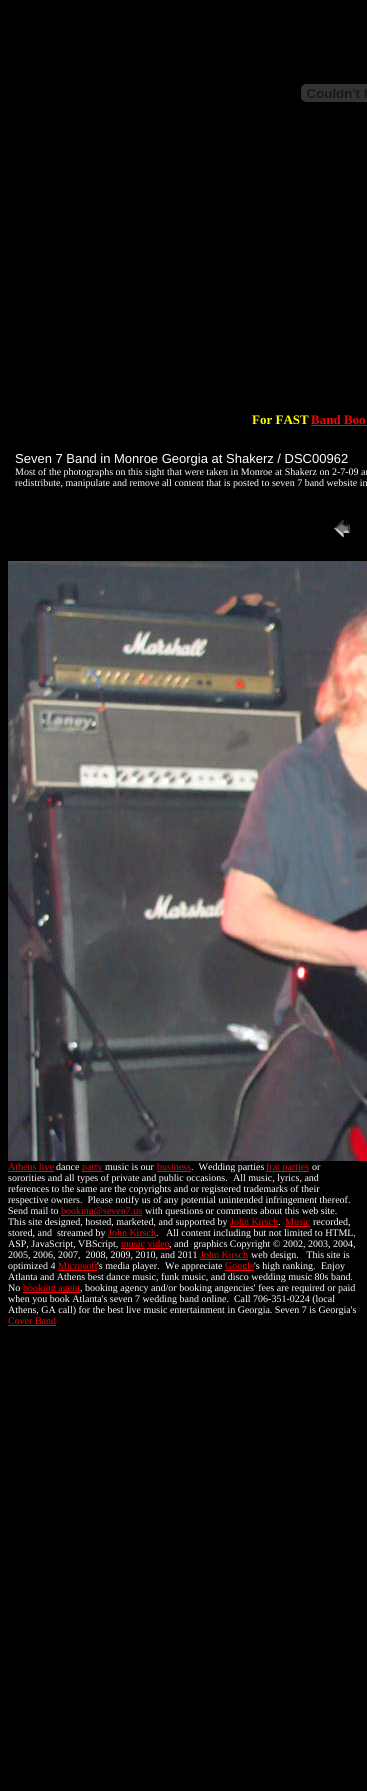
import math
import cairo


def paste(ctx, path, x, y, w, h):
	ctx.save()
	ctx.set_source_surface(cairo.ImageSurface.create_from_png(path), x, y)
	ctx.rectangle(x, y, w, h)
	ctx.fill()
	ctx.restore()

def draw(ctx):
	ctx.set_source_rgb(0, 0, 0)
	ctx.paint()
	paste(ctx, 'media/1.png', 301, 84, 66, 18)
	ctx.select_font_face('Liberation Serif', cairo.FONT_SLANT_NORMAL, cairo.FONT_WEIGHT_BOLD)
	ctx.set_font_size(13)
	ctx.set_source_rgb(1, 1, 0)
	ctx.move_to(252, 424)
	ctx.show_text('For FAST')
	ctx.set_source_rgb(1, 0, 0)
	ctx.move_to(311, 424)
	ctx.show_text('Band Boo')
	ctx.rectangle(311, 425, 56, 1)
	ctx.fill()
	ctx.select_font_face('Liberation Sans')
	ctx.set_source_rgb(1, 1, 1)
	ctx.move_to(15, 463)
	ctx.show_text('Seven 7 Band in Monroe Georgia at Shakerz / DSC00962')
	ctx.select_font_face('Liberation Serif')
	ctx.set_font_size(10)
	ctx.move_to(15, 475)
	ctx.show_text('Most of the photographs on this sight that were taken in Monroe at Shakerz on 2-7-09 ar')
	ctx.move_to(15, 486)
	ctx.show_text('redistribute, manipulate and remove all content that is posted to seven 7 band website in')
	paste(ctx, 'media/2.png', 334, 520, 16, 17)
	paste(ctx, 'media/3.png', 8, 561, 359, 600)
	ctx.set_source_rgb(1, 0, 0)
	ctx.move_to(8, 1170)
	ctx.show_text('Athens live')
	ctx.rectangle(8, 1171, 46, 1)
	ctx.fill()
	ctx.set_source_rgb(1, 1, 1)
	ctx.move_to(56, 1170)
	ctx.show_text('dance')
	ctx.set_source_rgb(1, 0, 0)
	ctx.rectangle(82, 1171, 21, 1)
	ctx.fill()
	ctx.move_to(82, 1170)
	ctx.show_text('party')
	ctx.set_source_rgb(1, 1, 1)
	ctx.move_to(105, 1170)
	ctx.show_text('music is our')
	ctx.set_source_rgb(1, 0, 0)
	ctx.move_to(157, 1170)
	ctx.show_text('business')
	ctx.set_source_rgb(1, 1, 1)
	ctx.move_to(191, 1170)
	ctx.show_text('.  Wedding parties')
	ctx.set_source_rgb(1, 0, 0)
	ctx.rectangle(157, 1171, 34, 1)
	ctx.fill()
	ctx.rectangle(266, 1171, 43, 1)
	ctx.fill()
	ctx.move_to(266, 1170)
	ctx.show_text('frat parties')
	ctx.set_source_rgb(1, 1, 1)
	for x, y, s in [
		(312, 1170, 'or'),
		(8, 1181, 'sororities and all types of private and public occasions.'),
		(233, 1181, 'All music, lyrics, and'),
		(8, 1192, 'references to the same are the copyrights and or registered trademarks of their'),
		(8, 1203, 'respective owners.  Please notify us of any potential unintended infringement thereof.'),
		(8, 1214, 'Send mail to'),
	]:
		ctx.move_to(x, y)
		ctx.show_text(s)
	ctx.set_source_rgb(1, 0, 0)
	ctx.rectangle(61, 1215, 81, 1)
	ctx.fill()
	ctx.move_to(61, 1214)
	ctx.show_text('booking@seven7.us')
	ctx.set_source_rgb(1, 1, 1)
	ctx.move_to(145, 1214)
	ctx.show_text('with questions or comments about this web site.')
	ctx.move_to(8, 1225)
	ctx.show_text('This site designed, hosted, marketed, and supported by')
	ctx.set_source_rgb(1, 0, 0)
	ctx.move_to(230, 1225)
	ctx.show_text('John Kirsch')
	ctx.set_source_rgb(1, 1, 1)
	ctx.move_to(278, 1225)
	ctx.show_text('.')
	ctx.set_source_rgb(1, 0, 0)
	ctx.rectangle(230, 1226, 48, 1)
	ctx.fill()
	ctx.rectangle(285, 1226, 25, 1)
	ctx.fill()
	ctx.move_to(285, 1225)
	ctx.show_text('Music')
	ctx.set_source_rgb(1, 1, 1)
	ctx.move_to(313, 1225)
	ctx.show_text('recorded,')
	ctx.move_to(8, 1236)
	ctx.show_text('stored, and  streamed by')
	ctx.set_source_rgb(1, 0, 0)
	ctx.move_to(108, 1236)
	ctx.show_text('John Kirsch')
	ctx.set_source_rgb(1, 1, 1)
	ctx.move_to(156, 1236)
	ctx.show_text('.   All content including but not limited to HTML,')
	ctx.set_source_rgb(1, 0, 0)
	ctx.rectangle(108, 1237, 48, 1)
	ctx.fill()
	ctx.set_source_rgb(1, 1, 1)
	ctx.move_to(8, 1247)
	ctx.show_text('ASP, JavaScript, VBScript,')
	ctx.set_source_rgb(1, 0, 0)
	ctx.move_to(121, 1247)
	ctx.show_text('music video')
	ctx.rectangle(121, 1248, 24, 1)
	ctx.fill()
	ctx.set_source_rgb(1, 1, 1)
	ctx.move_to(169, 1247)
	ctx.show_text(', and  graphics Copyright © 2002, 2003, 2004,')
	ctx.set_source_rgb(1, 0, 0)
	ctx.rectangle(147, 1248, 22, 1)
	ctx.fill()
	ctx.set_source_rgb(1, 1, 1)
	ctx.move_to(8, 1258)
	ctx.show_text('2005, 2006, 2007,  2008, 2009, 2010, and 2011')
	ctx.set_source_rgb(1, 0, 0)
	ctx.move_to(200, 1258)
	ctx.show_text('John Kirsch')
	ctx.rectangle(200, 1259, 48, 1)
	ctx.fill()
	ctx.set_source_rgb(1, 1, 1)
	ctx.move_to(251, 1258)
	ctx.show_text('web design.   This site is')
	ctx.move_to(8, 1269)
	ctx.show_text('optimized 4')
	ctx.set_source_rgb(1, 0, 0)
	ctx.move_to(58, 1269)
	ctx.show_text('Microsoft')
	ctx.set_source_rgb(1, 1, 1)
	ctx.move_to(97, 1269)
	ctx.show_text('\'s media player.')
	ctx.set_source_rgb(1, 0, 0)
	ctx.rectangle(58, 1270, 39, 1)
	ctx.fill()
	ctx.set_source_rgb(1, 1, 1)
	ctx.move_to(165, 1269)
	ctx.show_text('We appreciate')
	ctx.set_source_rgb(1, 0, 0)
	ctx.rectangle(225, 1270, 29, 1)
	ctx.fill()
	ctx.move_to(225, 1269)
	ctx.show_text('Google')
	ctx.set_source_rgb(1, 1, 1)
	for x, y, s in [
		(254, 1269, '\'s high ranking.'),
		(321, 1269, 'Enjoy'),
		(8, 1280, 'Atlanta and Athens best dance music, funk music, and disco wedding music 80s band.'),
		(8, 1291, 'No'),
	]:
		ctx.move_to(x, y)
		ctx.show_text(s)
	ctx.set_source_rgb(1, 0, 0)
	ctx.rectangle(23, 1292, 57, 1)
	ctx.fill()
	ctx.move_to(23, 1291)
	ctx.show_text('booking agent')
	ctx.set_source_rgb(1, 1, 1)
	for x, y, s in [
		(80, 1291, ', booking agency and/or booking angencies\' fees are required or paid'),
		(8, 1302, 'when you book Atlanta\'s seven 7 wedding band online.  Call 706-351-0224 (local'),
		(8, 1313, 'Athens, GA call) for the best live music entertainment in Georgia. Seven 7 is Georgia\'s'),
	]:
		ctx.move_to(x, y)
		ctx.show_text(s)
	ctx.set_source_rgb(1, 0, 0)
	ctx.move_to(8, 1324)
	ctx.show_text('Cover Band')
	ctx.rectangle(8, 1325, 48, 1)
	ctx.fill()


surface = cairo.ImageSurface(cairo.FORMAT_RGB24, 367, 1791)
ctx = cairo.Context(surface)
options = cairo.FontOptions()
options.set_hint_metrics(cairo.HINT_METRICS_OFF)
options.set_hint_style(cairo.HINT_STYLE_NONE)
ctx.set_font_options(options)
ctx.set_miter_limit(4)
draw(ctx)
surface.write_to_png('image.png')
